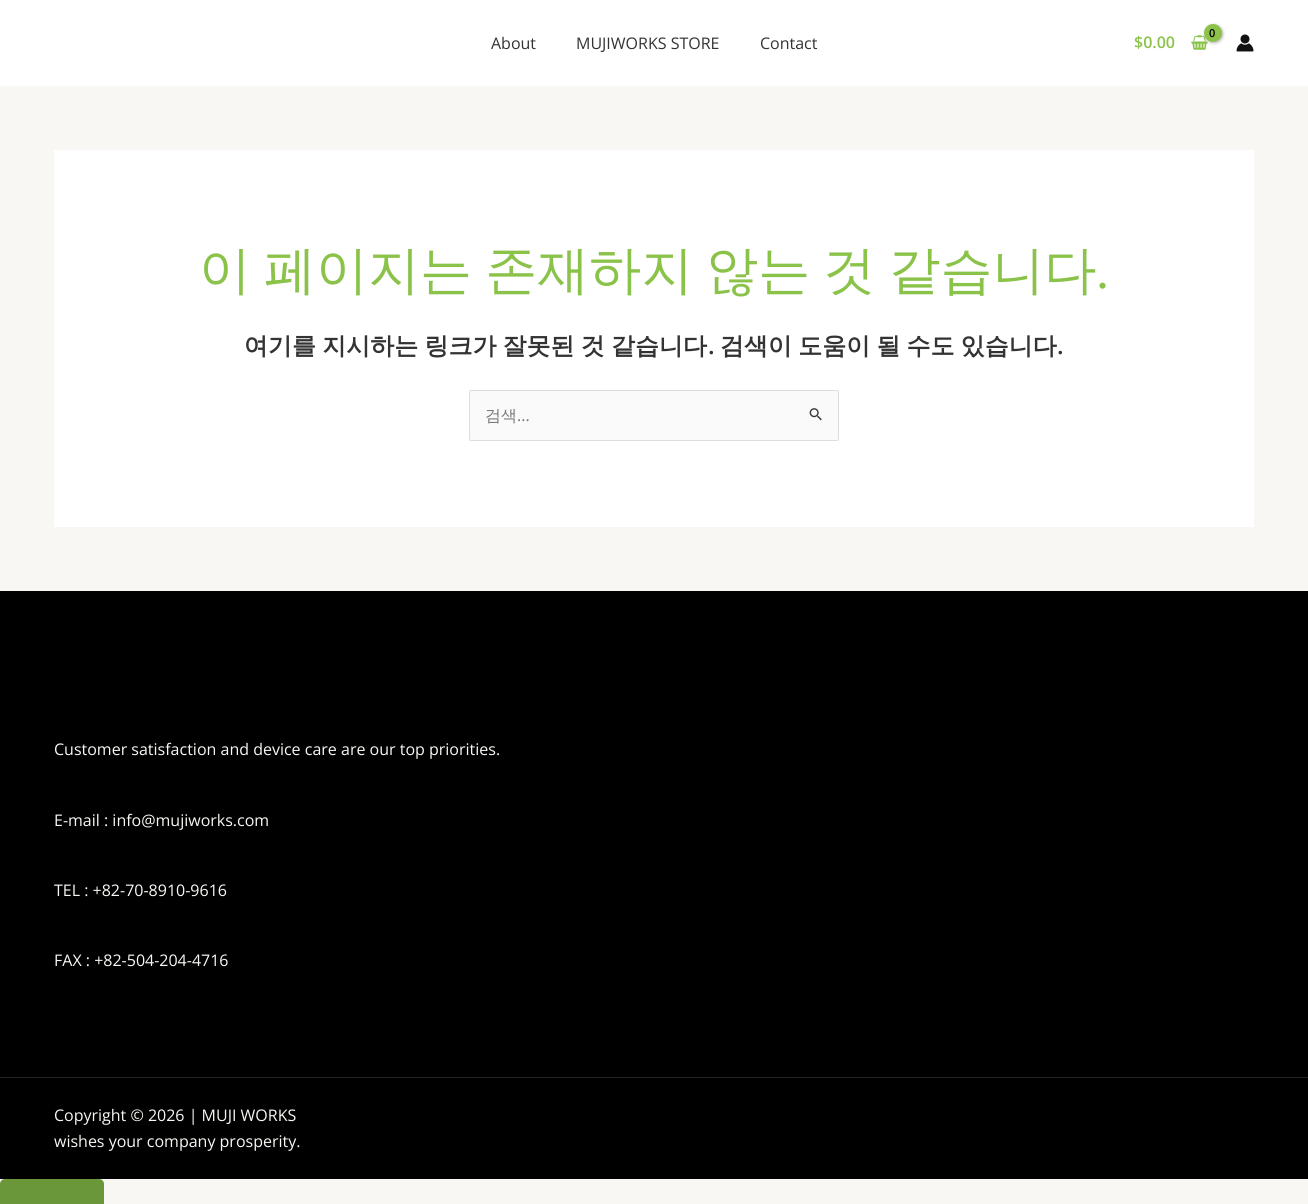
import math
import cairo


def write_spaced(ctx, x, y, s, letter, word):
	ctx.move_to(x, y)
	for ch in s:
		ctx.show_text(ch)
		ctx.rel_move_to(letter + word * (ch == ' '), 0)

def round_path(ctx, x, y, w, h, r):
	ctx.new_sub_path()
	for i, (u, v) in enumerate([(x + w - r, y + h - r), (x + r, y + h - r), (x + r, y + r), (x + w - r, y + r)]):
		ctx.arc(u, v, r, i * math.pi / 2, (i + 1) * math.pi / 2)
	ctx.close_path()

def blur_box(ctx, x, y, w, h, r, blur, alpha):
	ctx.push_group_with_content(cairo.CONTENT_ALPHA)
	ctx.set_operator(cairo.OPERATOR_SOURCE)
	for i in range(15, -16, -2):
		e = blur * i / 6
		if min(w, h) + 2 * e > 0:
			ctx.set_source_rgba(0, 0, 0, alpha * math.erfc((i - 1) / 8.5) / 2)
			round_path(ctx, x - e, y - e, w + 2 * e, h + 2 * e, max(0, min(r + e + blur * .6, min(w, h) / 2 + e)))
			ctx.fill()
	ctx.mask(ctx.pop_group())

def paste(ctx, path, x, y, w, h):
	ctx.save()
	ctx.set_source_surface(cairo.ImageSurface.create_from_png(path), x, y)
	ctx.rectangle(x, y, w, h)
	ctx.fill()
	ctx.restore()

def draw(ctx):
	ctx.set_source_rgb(0.973, 0.965, 0.953)
	ctx.paint()
	ctx.set_source_rgb(1, 1, 1)
	ctx.rectangle(0, 0, 1308, 86)
	ctx.fill()
	ctx.select_font_face('Open Sans')
	ctx.set_font_size(16)
	ctx.set_source_rgb(0.2, 0.2, 0.2)
	for x, y, s in [
		(491, 49, 'About'),
		(576, 49, 'MUJIWORKS STORE'),
		(760, 49, 'Contact'),
	]:
		ctx.move_to(x, y)
		ctx.show_text(s)
	paste(ctx, 'media/1.png', 1191, 35, 17, 15)
	ctx.set_source_rgb(0, 0, 0)
	blur_box(ctx, 1205, 25, 18, 18, 9, 1.5, 0.3)
	ctx.set_source_rgb(0.545, 0.765, 0.29)
	ctx.arc(1213, 33, 9, 0, 2 * math.pi)
	ctx.fill()
	ctx.select_font_face('Open Sans SemiBold')
	ctx.set_font_size(11)
	ctx.set_source_rgb(0, 0, 0)
	ctx.move_to(1209, 37)
	ctx.show_text('0')
	ctx.set_font_size(16)
	ctx.set_source_rgb(0.545, 0.765, 0.29)
	ctx.move_to(1134, 48)
	ctx.show_text('$0.00')
	paste(ctx, 'media/2.png', 1236, 34, 18, 18)
	ctx.set_source_rgb(1, 1, 1)
	ctx.rectangle(54, 150, 1200, 377)
	ctx.fill()
	ctx.select_font_face('WenQuanYi Zen Hei Medium')
	ctx.set_font_size(52)
	ctx.set_source_rgb(0.545, 0.765, 0.29)
	write_spaced(ctx, 199, 288, '이 페이지는 존재하지 않는 것 같습니다', 0, -2.5)
	ctx.select_font_face('Liberation Serif')
	ctx.move_to(1096, 288)
	ctx.show_text('.')
	ctx.select_font_face('WenQuanYi Zen Hei', cairo.FONT_SLANT_NORMAL, cairo.FONT_WEIGHT_BOLD)
	ctx.set_font_size(24)
	ctx.set_source_rgb(0.2, 0.2, 0.2)
	write_spaced(ctx, 244, 354, '여기를 지시하는 링크가 잘못된 것 같습니다', 0, -1)
	ctx.select_font_face('Open Sans SemiBold')
	ctx.move_to(708, 354)
	ctx.show_text('.')
	ctx.select_font_face('WenQuanYi Zen Hei', cairo.FONT_SLANT_NORMAL, cairo.FONT_WEIGHT_BOLD)
	write_spaced(ctx, 720, 354, '검색이 도움이 될 수도 있습니다', 0, -1)
	ctx.select_font_face('Open Sans SemiBold')
	ctx.move_to(1057, 354)
	ctx.show_text('.')
	ctx.set_source_rgb(0.98, 0.98, 0.98)
	round_path(ctx, 469.5, 390.5, 369, 50, 1.5)
	ctx.fill_preserve()
	ctx.set_source_rgb(0.867, 0.867, 0.867)
	ctx.set_line_width(1)
	ctx.stroke()
	ctx.select_font_face('WenQuanYi Zen Hei Medium')
	ctx.set_font_size(16)
	ctx.set_source_rgb(0.459, 0.459, 0.459)
	ctx.move_to(485, 421)
	ctx.show_text('검색')
	ctx.select_font_face('Open Sans')
	ctx.move_to(517, 421)
	ctx.show_text('...')
	paste(ctx, 'media/3.png', 809, 408, 13, 13)
	ctx.set_source_rgb(0, 0, 0)
	ctx.rectangle(0, 591, 1308, 486)
	ctx.fill()
	ctx.set_source_rgb(0.973, 0.965, 0.953)
	for x, y, s in [
		(54, 755, 'Customer satisfaction and device care are our top priorities.'),
		(54, 826, 'E-mail : info@mujiworks.com'),
		(54, 896, 'TEL : +82-70-8910-9616'),
		(54, 966, 'FAX : +82-504-204-4716'),
	]:
		ctx.move_to(x, y)
		ctx.show_text(s)
	ctx.set_source_rgb(0, 0, 0)
	ctx.rectangle(0, 1078, 1308, 101)
	ctx.fill()
	ctx.set_source_rgb(0.133, 0.133, 0.133)
	ctx.rectangle(0, 1077, 1308, 1)
	ctx.fill()
	ctx.set_source_rgb(0.973, 0.965, 0.953)
	ctx.move_to(54, 1121)
	ctx.show_text('Copyright © 2026 | MUJI WORKS')
	ctx.move_to(54, 1147)
	ctx.show_text('wishes your company prosperity.')
	ctx.set_source_rgb(0.416, 0.592, 0.224)
	round_path(ctx, 0, 1179, 104, 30, 5)
	ctx.fill()


surface = cairo.ImageSurface(cairo.FORMAT_RGB24, 1308, 1204)
ctx = cairo.Context(surface)
options = cairo.FontOptions()
options.set_hint_metrics(cairo.HINT_METRICS_OFF)
options.set_hint_style(cairo.HINT_STYLE_NONE)
ctx.set_font_options(options)
ctx.set_miter_limit(4)
draw(ctx)
surface.write_to_png('image.png')
